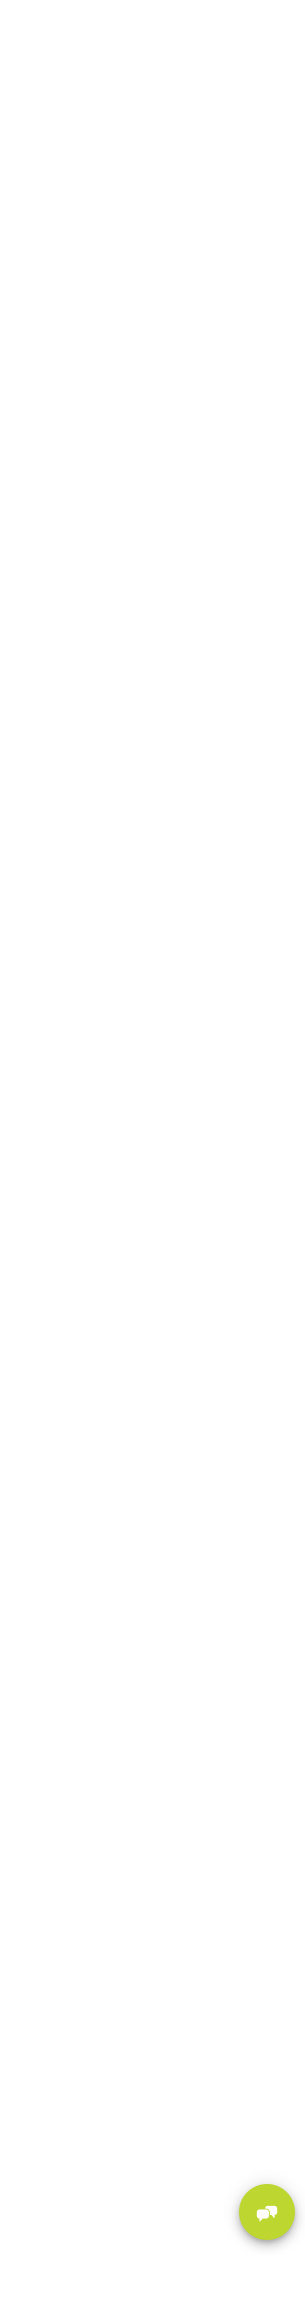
import math
import cairo


def round_path(ctx, x, y, w, h, r):
	ctx.new_sub_path()
	for i, (u, v) in enumerate([(x + w - r, y + h - r), (x + r, y + h - r), (x + r, y + r), (x + w - r, y + r)]):
		ctx.arc(u, v, r, i * math.pi / 2, (i + 1) * math.pi / 2)
	ctx.close_path()

def blur_box(ctx, x, y, w, h, r, blur, alpha):
	ctx.push_group_with_content(cairo.CONTENT_ALPHA)
	ctx.set_operator(cairo.OPERATOR_SOURCE)
	for i in range(15, -16, -2):
		e = blur * i / 6
		if min(w, h) + 2 * e > 0:
			ctx.set_source_rgba(0, 0, 0, alpha * math.erfc((i - 1) / 8.5) / 2)
			round_path(ctx, x - e, y - e, w + 2 * e, h + 2 * e, max(0, min(r + e + blur * .6, min(w, h) / 2 + e)))
			ctx.fill()
	ctx.mask(ctx.pop_group())

def paste(ctx, path, x, y, w, h):
	ctx.save()
	ctx.set_source_surface(cairo.ImageSurface.create_from_png(path), x, y)
	ctx.rectangle(x, y, w, h)
	ctx.fill()
	ctx.restore()

def draw(ctx):
	ctx.set_source_rgb(1, 1, 1)
	ctx.paint()
	ctx.set_source_rgb(0, 0, 0)
	blur_box(ctx, 239, 2185, 56, 56, 28, 9, 0.12)
	blur_box(ctx, 239, 2190, 56, 56, 28, 5, 0.14)
	blur_box(ctx, 240, 2188, 54, 54, 27, 2.5, 0.2)
	ctx.set_source_rgb(0.745, 0.839, 0.188)
	ctx.arc(267, 2212, 28, 0, 2 * math.pi)
	ctx.fill()
	paste(ctx, 'media/1.png', 256, 2205, 22, 17)


surface = cairo.ImageSurface(cairo.FORMAT_RGB24, 305, 2298)
ctx = cairo.Context(surface)
options = cairo.FontOptions()
options.set_hint_metrics(cairo.HINT_METRICS_OFF)
options.set_hint_style(cairo.HINT_STYLE_NONE)
ctx.set_font_options(options)
ctx.set_miter_limit(4)
draw(ctx)
surface.write_to_png('image.png')
